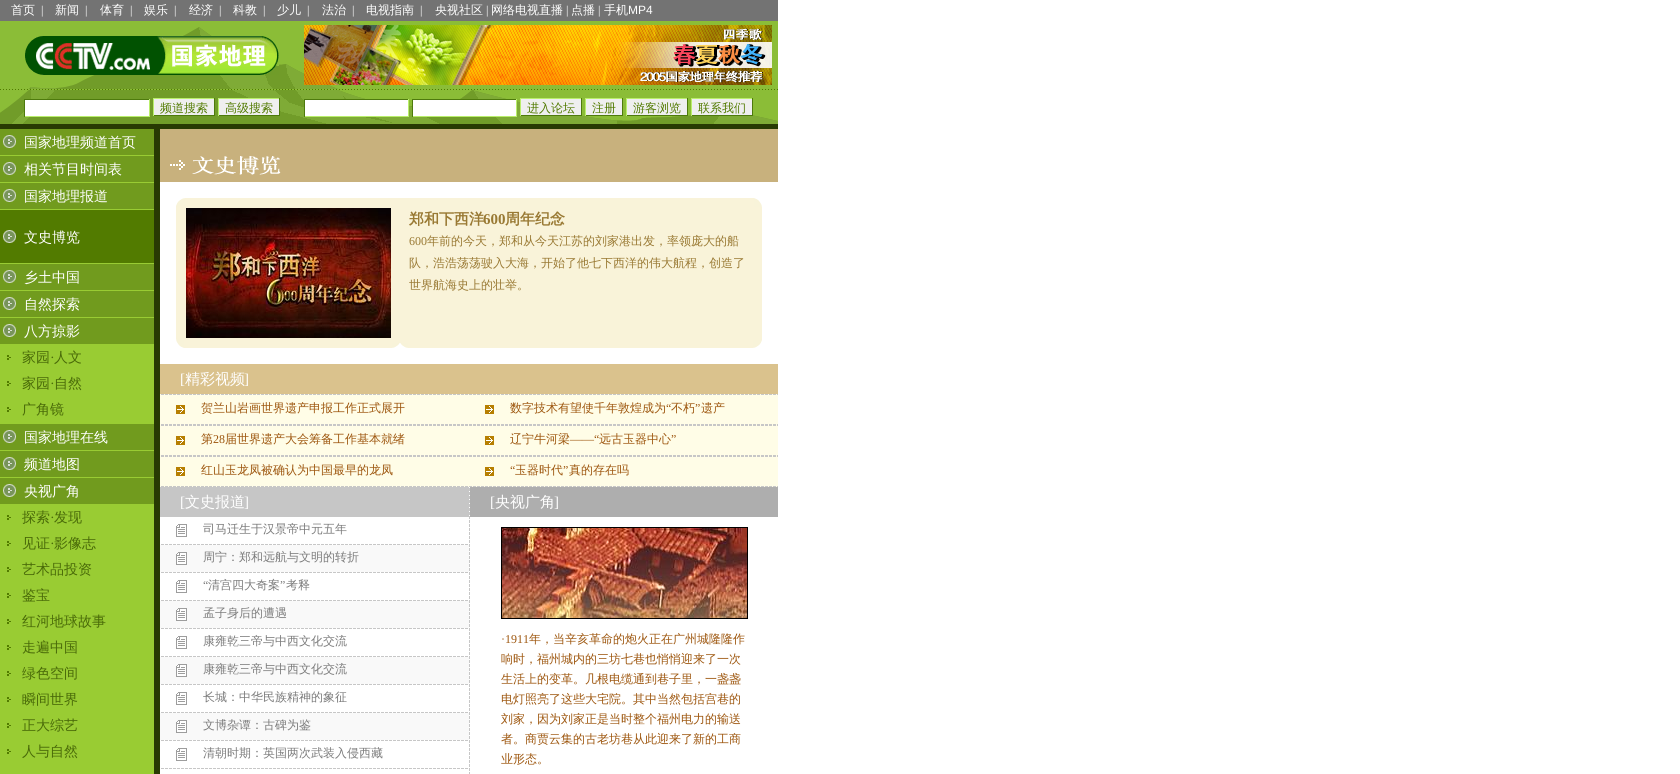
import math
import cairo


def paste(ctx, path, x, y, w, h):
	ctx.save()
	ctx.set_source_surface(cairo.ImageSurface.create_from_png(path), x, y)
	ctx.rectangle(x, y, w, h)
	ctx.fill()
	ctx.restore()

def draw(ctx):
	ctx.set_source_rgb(1, 1, 1)
	ctx.paint()
	ctx.set_source_rgb(0.451, 0.451, 0.451)
	ctx.rectangle(0, 0, 778, 21)
	ctx.fill()
	ctx.select_font_face('WenQuanYi Zen Hei Medium')
	ctx.set_font_size(12)
	ctx.set_source_rgb(1, 1, 1)
	ctx.move_to(11, 14)
	ctx.show_text('首页')
	ctx.select_font_face('Liberation Serif')
	ctx.move_to(41, 14)
	ctx.show_text('|')
	ctx.select_font_face('WenQuanYi Zen Hei Medium')
	ctx.move_to(55, 14)
	ctx.show_text('新闻')
	ctx.select_font_face('Liberation Serif')
	ctx.move_to(85, 14)
	ctx.show_text('|')
	ctx.select_font_face('WenQuanYi Zen Hei Medium')
	ctx.move_to(100, 14)
	ctx.show_text('体育')
	ctx.select_font_face('Liberation Serif')
	ctx.move_to(130, 14)
	ctx.show_text('|')
	ctx.select_font_face('WenQuanYi Zen Hei Medium')
	ctx.move_to(144, 14)
	ctx.show_text('娱乐')
	ctx.select_font_face('Liberation Serif')
	ctx.move_to(174, 14)
	ctx.show_text('|')
	ctx.select_font_face('WenQuanYi Zen Hei Medium')
	ctx.move_to(189, 14)
	ctx.show_text('经济')
	ctx.select_font_face('Liberation Serif')
	ctx.move_to(219, 14)
	ctx.show_text('|')
	ctx.select_font_face('WenQuanYi Zen Hei Medium')
	ctx.move_to(233, 14)
	ctx.show_text('科教')
	ctx.select_font_face('Liberation Serif')
	ctx.move_to(263, 14)
	ctx.show_text('|')
	ctx.select_font_face('WenQuanYi Zen Hei Medium')
	ctx.move_to(277, 14)
	ctx.show_text('少儿')
	ctx.select_font_face('Liberation Serif')
	ctx.move_to(307, 14)
	ctx.show_text('|')
	ctx.select_font_face('WenQuanYi Zen Hei Medium')
	ctx.move_to(322, 14)
	ctx.show_text('法治')
	ctx.select_font_face('Liberation Serif')
	ctx.move_to(352, 14)
	ctx.show_text('|')
	ctx.select_font_face('WenQuanYi Zen Hei Medium')
	ctx.move_to(366, 14)
	ctx.show_text('电视指南')
	ctx.select_font_face('Liberation Serif')
	ctx.move_to(420, 14)
	ctx.show_text('|')
	ctx.select_font_face('WenQuanYi Zen Hei Medium')
	ctx.move_to(435, 14)
	ctx.show_text('央视社区')
	ctx.select_font_face('Liberation Serif')
	ctx.move_to(486, 14)
	ctx.show_text('|')
	ctx.select_font_face('WenQuanYi Zen Hei Medium')
	ctx.move_to(491, 14)
	ctx.show_text('网络电视直播')
	ctx.select_font_face('Liberation Serif')
	ctx.move_to(566, 14)
	ctx.show_text('|')
	ctx.select_font_face('WenQuanYi Zen Hei Medium')
	ctx.move_to(571, 14)
	ctx.show_text('点播')
	ctx.select_font_face('Liberation Serif')
	ctx.move_to(598, 14)
	ctx.show_text('|')
	ctx.select_font_face('WenQuanYi Zen Hei Medium')
	ctx.move_to(604, 14)
	ctx.show_text('手机')
	ctx.select_font_face('Liberation Sans')
	ctx.move_to(628, 14)
	ctx.show_text('MP4')
	paste(ctx, 'media/1.png', 0, 21, 778, 68)
	paste(ctx, 'media/2.png', 25, 36, 254, 39)
	paste(ctx, 'media/3.png', 304, 25, 468, 60)
	paste(ctx, 'media/4.png', 0, 89, 778, 1)
	paste(ctx, 'media/5.png', 0, 90, 778, 34)
	ctx.rectangle(25, 100, 124, 16)
	ctx.fill()
	ctx.set_source_rgb(0.306, 0.478, 0.051)
	ctx.rectangle(24, 99, 126, 1)
	ctx.fill()
	ctx.set_source_rgb(0.725, 0.933, 0.42)
	ctx.rectangle(149, 99, 1, 18)
	ctx.rectangle(24, 116, 126, 1)
	ctx.fill()
	ctx.set_source_rgb(0.306, 0.478, 0.051)
	ctx.rectangle(24, 99, 1, 18)
	ctx.fill()
	ctx.set_source_rgb(0.937, 0.937, 0.937)
	ctx.rectangle(154, 99, 60, 16)
	ctx.fill()
	ctx.set_source_rgb(0.725, 0.933, 0.42)
	ctx.rectangle(153, 98, 62, 1)
	ctx.fill()
	ctx.set_source_rgb(0.306, 0.478, 0.051)
	ctx.rectangle(214, 98, 1, 18)
	ctx.rectangle(153, 115, 62, 1)
	ctx.fill()
	ctx.set_source_rgb(0.725, 0.933, 0.42)
	ctx.rectangle(153, 98, 1, 18)
	ctx.fill()
	ctx.select_font_face('WenQuanYi Zen Hei Medium')
	ctx.set_source_rgb(0.318, 0.478, 0)
	ctx.move_to(160, 112)
	ctx.show_text('频道搜索')
	ctx.set_source_rgb(0.937, 0.937, 0.937)
	ctx.rectangle(219, 99, 60, 16)
	ctx.fill()
	ctx.set_source_rgb(0.725, 0.933, 0.42)
	ctx.rectangle(218, 98, 62, 1)
	ctx.fill()
	ctx.set_source_rgb(0.306, 0.478, 0.051)
	ctx.rectangle(279, 98, 1, 18)
	ctx.rectangle(218, 115, 62, 1)
	ctx.fill()
	ctx.set_source_rgb(0.725, 0.933, 0.42)
	ctx.rectangle(218, 98, 1, 18)
	ctx.fill()
	ctx.set_source_rgb(0.318, 0.478, 0)
	ctx.move_to(225, 112)
	ctx.show_text('高级搜索')
	ctx.set_source_rgb(1, 1, 1)
	ctx.rectangle(305, 100, 103, 16)
	ctx.fill()
	ctx.set_source_rgb(0.306, 0.478, 0.051)
	ctx.rectangle(304, 99, 105, 1)
	ctx.fill()
	ctx.set_source_rgb(0.725, 0.933, 0.42)
	ctx.rectangle(408, 99, 1, 18)
	ctx.rectangle(304, 116, 105, 1)
	ctx.fill()
	ctx.set_source_rgb(0.306, 0.478, 0.051)
	ctx.rectangle(304, 99, 1, 18)
	ctx.fill()
	ctx.set_source_rgb(1, 1, 1)
	ctx.rectangle(413, 100, 103, 16)
	ctx.fill()
	ctx.set_source_rgb(0.306, 0.478, 0.051)
	ctx.rectangle(412, 99, 105, 1)
	ctx.fill()
	ctx.set_source_rgb(0.725, 0.933, 0.42)
	ctx.rectangle(516, 99, 1, 18)
	ctx.rectangle(412, 116, 105, 1)
	ctx.fill()
	ctx.set_source_rgb(0.306, 0.478, 0.051)
	ctx.rectangle(412, 99, 1, 18)
	ctx.fill()
	ctx.set_source_rgb(0.937, 0.937, 0.937)
	ctx.rectangle(521, 99, 60, 16)
	ctx.fill()
	ctx.set_source_rgb(0.725, 0.933, 0.42)
	ctx.rectangle(520, 98, 62, 1)
	ctx.fill()
	ctx.set_source_rgb(0.306, 0.478, 0.051)
	ctx.rectangle(581, 98, 1, 18)
	ctx.rectangle(520, 115, 62, 1)
	ctx.fill()
	ctx.set_source_rgb(0.725, 0.933, 0.42)
	ctx.rectangle(520, 98, 1, 18)
	ctx.fill()
	ctx.set_source_rgb(0.318, 0.478, 0)
	ctx.move_to(527, 112)
	ctx.show_text('进入论坛')
	ctx.set_source_rgb(0.937, 0.937, 0.937)
	ctx.rectangle(586, 99, 36, 16)
	ctx.fill()
	ctx.set_source_rgb(0.725, 0.933, 0.42)
	ctx.rectangle(585, 98, 38, 1)
	ctx.fill()
	ctx.set_source_rgb(0.306, 0.478, 0.051)
	ctx.rectangle(622, 98, 1, 18)
	ctx.rectangle(585, 115, 38, 1)
	ctx.fill()
	ctx.set_source_rgb(0.725, 0.933, 0.42)
	ctx.rectangle(585, 98, 1, 18)
	ctx.fill()
	ctx.set_source_rgb(0.318, 0.478, 0)
	ctx.move_to(592, 112)
	ctx.show_text('注册')
	ctx.set_source_rgb(0.937, 0.937, 0.937)
	ctx.rectangle(627, 99, 60, 16)
	ctx.fill()
	ctx.set_source_rgb(0.725, 0.933, 0.42)
	ctx.rectangle(626, 98, 62, 1)
	ctx.fill()
	ctx.set_source_rgb(0.306, 0.478, 0.051)
	ctx.rectangle(687, 98, 1, 18)
	ctx.rectangle(626, 115, 62, 1)
	ctx.fill()
	ctx.set_source_rgb(0.725, 0.933, 0.42)
	ctx.rectangle(626, 98, 1, 18)
	ctx.fill()
	ctx.set_source_rgb(0.318, 0.478, 0)
	ctx.move_to(633, 112)
	ctx.show_text('游客浏览')
	ctx.set_source_rgb(0.937, 0.937, 0.937)
	ctx.rectangle(692, 99, 60, 16)
	ctx.fill()
	ctx.set_source_rgb(0.725, 0.933, 0.42)
	ctx.rectangle(691, 98, 62, 1)
	ctx.fill()
	ctx.set_source_rgb(0.306, 0.478, 0.051)
	ctx.rectangle(752, 98, 1, 18)
	ctx.rectangle(691, 115, 62, 1)
	ctx.fill()
	ctx.set_source_rgb(0.725, 0.933, 0.42)
	ctx.rectangle(691, 98, 1, 18)
	ctx.fill()
	ctx.set_source_rgb(0.318, 0.478, 0)
	ctx.move_to(698, 112)
	ctx.show_text('联系我们')
	ctx.set_source_rgb(0.157, 0.227, 0.012)
	ctx.rectangle(0, 124, 778, 5)
	ctx.fill()
	ctx.set_source_rgb(0.6, 0.8, 0.2)
	ctx.rectangle(0, 155, 154, 619)
	ctx.fill()
	ctx.set_source_rgb(0.443, 0.608, 0.118)
	ctx.rectangle(0, 129, 154, 26)
	ctx.fill()
	paste(ctx, 'media/6.png', 3, 135, 13, 13)
	ctx.set_font_size(14)
	ctx.set_source_rgb(1, 1, 1)
	ctx.move_to(24, 147)
	ctx.show_text('国家地理频道首页')
	ctx.set_source_rgb(0.443, 0.608, 0.118)
	ctx.rectangle(0, 156, 154, 26)
	ctx.fill()
	paste(ctx, 'media/6.png', 3, 162, 13, 13)
	ctx.set_source_rgb(1, 1, 1)
	ctx.move_to(24, 174)
	ctx.show_text('相关节目时间表')
	ctx.set_source_rgb(0.443, 0.608, 0.118)
	ctx.rectangle(0, 183, 154, 26)
	ctx.fill()
	paste(ctx, 'media/6.png', 3, 189, 13, 13)
	ctx.set_source_rgb(1, 1, 1)
	ctx.move_to(24, 201)
	ctx.show_text('国家地理报道')
	ctx.set_source_rgb(0.322, 0.482, 0)
	ctx.rectangle(0, 210, 154, 53)
	ctx.fill()
	paste(ctx, 'media/7.png', 3, 230, 13, 13)
	ctx.set_source_rgb(1, 1, 1)
	ctx.move_to(24, 242)
	ctx.show_text('文史博览')
	ctx.set_source_rgb(0.443, 0.608, 0.118)
	ctx.rectangle(0, 264, 154, 26)
	ctx.fill()
	paste(ctx, 'media/6.png', 3, 270, 13, 13)
	ctx.set_source_rgb(1, 1, 1)
	ctx.move_to(24, 282)
	ctx.show_text('乡土中国')
	ctx.set_source_rgb(0.443, 0.608, 0.118)
	ctx.rectangle(0, 291, 154, 26)
	ctx.fill()
	paste(ctx, 'media/6.png', 3, 297, 13, 13)
	ctx.set_source_rgb(1, 1, 1)
	ctx.move_to(24, 309)
	ctx.show_text('自然探索')
	ctx.set_source_rgb(0.443, 0.608, 0.118)
	ctx.rectangle(0, 318, 154, 26)
	ctx.fill()
	paste(ctx, 'media/6.png', 3, 324, 13, 13)
	ctx.set_source_rgb(1, 1, 1)
	ctx.move_to(24, 336)
	ctx.show_text('八方掠影')
	paste(ctx, 'media/8.png', 7, 355, 4, 5)
	ctx.set_source_rgb(0.286, 0.416, 0.035)
	ctx.move_to(22, 362)
	ctx.show_text('家园')
	ctx.select_font_face('Liberation Serif')
	ctx.move_to(50, 362)
	ctx.show_text('·')
	ctx.select_font_face('WenQuanYi Zen Hei Medium')
	ctx.move_to(54, 362)
	ctx.show_text('人文')
	paste(ctx, 'media/8.png', 7, 381, 4, 5)
	ctx.move_to(22, 388)
	ctx.show_text('家园')
	ctx.select_font_face('Liberation Serif')
	ctx.move_to(50, 388)
	ctx.show_text('·')
	ctx.select_font_face('WenQuanYi Zen Hei Medium')
	ctx.move_to(54, 388)
	ctx.show_text('自然')
	paste(ctx, 'media/8.png', 7, 407, 4, 5)
	ctx.move_to(22, 414)
	ctx.show_text('广角镜')
	ctx.set_source_rgb(0.443, 0.608, 0.118)
	ctx.rectangle(0, 424, 154, 26)
	ctx.fill()
	paste(ctx, 'media/6.png', 3, 430, 13, 13)
	ctx.set_source_rgb(1, 1, 1)
	ctx.move_to(24, 442)
	ctx.show_text('国家地理在线')
	ctx.set_source_rgb(0.443, 0.608, 0.118)
	ctx.rectangle(0, 451, 154, 26)
	ctx.fill()
	paste(ctx, 'media/6.png', 3, 457, 13, 13)
	ctx.set_source_rgb(1, 1, 1)
	ctx.move_to(24, 469)
	ctx.show_text('频道地图')
	ctx.set_source_rgb(0.443, 0.608, 0.118)
	ctx.rectangle(0, 478, 154, 26)
	ctx.fill()
	paste(ctx, 'media/6.png', 3, 484, 13, 13)
	ctx.set_source_rgb(1, 1, 1)
	ctx.move_to(24, 496)
	ctx.show_text('央视广角')
	paste(ctx, 'media/8.png', 7, 515, 4, 5)
	ctx.set_source_rgb(0.286, 0.416, 0.035)
	ctx.move_to(22, 522)
	ctx.show_text('探索')
	ctx.select_font_face('Liberation Serif')
	ctx.move_to(50, 522)
	ctx.show_text('·')
	ctx.select_font_face('WenQuanYi Zen Hei Medium')
	ctx.move_to(54, 522)
	ctx.show_text('发现')
	paste(ctx, 'media/8.png', 7, 541, 4, 5)
	ctx.move_to(22, 548)
	ctx.show_text('见证')
	ctx.select_font_face('Liberation Serif')
	ctx.move_to(50, 548)
	ctx.show_text('·')
	ctx.select_font_face('WenQuanYi Zen Hei Medium')
	ctx.move_to(54, 548)
	ctx.show_text('影像志')
	paste(ctx, 'media/8.png', 7, 567, 4, 5)
	ctx.move_to(22, 574)
	ctx.show_text('艺术品投资')
	paste(ctx, 'media/8.png', 7, 593, 4, 5)
	ctx.move_to(22, 600)
	ctx.show_text('鉴宝')
	paste(ctx, 'media/8.png', 7, 619, 4, 5)
	ctx.move_to(22, 626)
	ctx.show_text('红河地球故事')
	paste(ctx, 'media/8.png', 7, 645, 4, 5)
	ctx.move_to(22, 652)
	ctx.show_text('走遍中国')
	paste(ctx, 'media/8.png', 7, 671, 4, 5)
	ctx.move_to(22, 678)
	ctx.show_text('绿色空间')
	paste(ctx, 'media/8.png', 7, 697, 4, 5)
	ctx.move_to(22, 704)
	ctx.show_text('瞬间世界')
	paste(ctx, 'media/8.png', 7, 723, 4, 5)
	ctx.move_to(22, 730)
	ctx.show_text('正大综艺')
	paste(ctx, 'media/8.png', 7, 749, 4, 5)
	ctx.move_to(22, 756)
	ctx.show_text('人与自然')
	ctx.set_source_rgb(0.157, 0.227, 0.012)
	ctx.rectangle(154, 129, 6, 645)
	ctx.fill()
	ctx.set_source_rgb(0.784, 0.694, 0.49)
	ctx.rectangle(160, 129, 618, 53)
	ctx.fill()
	paste(ctx, 'media/9.png', 170, 156, 111, 19)
	ctx.set_source_rgb(0.973, 0.953, 0.851)
	ctx.rectangle(176, 198, 586, 150)
	ctx.fill()
	paste(ctx, 'media/10.png', 176, 198, 9, 8)
	paste(ctx, 'media/11.png', 754, 198, 8, 9)
	paste(ctx, 'media/12.png', 186, 208, 205, 130)
	ctx.select_font_face('WenQuanYi Zen Hei', cairo.FONT_SLANT_NORMAL, cairo.FONT_WEIGHT_BOLD)
	ctx.set_font_size(15)
	ctx.set_source_rgb(0.6, 0.475, 0.2)
	ctx.move_to(409, 224)
	ctx.show_text('郑和下西洋')
	ctx.select_font_face('Liberation Serif', cairo.FONT_SLANT_NORMAL, cairo.FONT_WEIGHT_BOLD)
	ctx.move_to(483, 224)
	ctx.show_text('600')
	ctx.select_font_face('WenQuanYi Zen Hei', cairo.FONT_SLANT_NORMAL, cairo.FONT_WEIGHT_BOLD)
	ctx.move_to(505, 224)
	ctx.show_text('周年纪念')
	ctx.select_font_face('Liberation Serif')
	ctx.set_font_size(12)
	ctx.move_to(409, 245)
	ctx.show_text('600')
	ctx.select_font_face('WenQuanYi Zen Hei Medium')
	for x, y, s in [
		(427, 245, '年前的今天，郑和从今天江苏的刘家港出发，率领庞大的船'),
		(409, 267, '队，浩浩荡荡驶入大海，开始了他七下西洋的伟大航程，创造了'),
		(409, 289, '世界航海史上的壮举。'),
	]:
		ctx.move_to(x, y)
		ctx.show_text(s)
	paste(ctx, 'media/13.png', 176, 339, 8, 9)
	paste(ctx, 'media/14.png', 392, 343, 16, 5)
	paste(ctx, 'media/15.png', 753, 340, 9, 8)
	ctx.set_source_rgb(0.855, 0.761, 0.553)
	ctx.rectangle(160, 364, 618, 30)
	ctx.fill()
	ctx.select_font_face('Liberation Serif')
	ctx.set_font_size(15)
	ctx.set_source_rgb(1, 1, 1)
	ctx.move_to(180, 384)
	ctx.show_text('[')
	ctx.select_font_face('WenQuanYi Zen Hei Medium')
	ctx.move_to(185, 384)
	ctx.show_text('精彩视频')
	ctx.select_font_face('Liberation Serif')
	ctx.move_to(244, 384)
	ctx.show_text(']')
	ctx.set_source_rgb(1, 0.992, 0.906)
	ctx.rectangle(160, 394, 618, 93)
	ctx.fill()
	paste(ctx, 'media/16.png', 161, 394, 617, 1)
	paste(ctx, 'media/17.png', 176, 405, 9, 9)
	ctx.select_font_face('WenQuanYi Zen Hei Medium')
	ctx.set_font_size(12)
	ctx.set_source_rgb(0.616, 0.337, 0.055)
	ctx.move_to(201, 412)
	ctx.show_text('贺兰山岩画世界遗产申报工作正式展开')
	paste(ctx, 'media/17.png', 485, 405, 9, 9)
	ctx.move_to(510, 412)
	ctx.show_text('数字技术有望使千年敦煌成为')
	ctx.select_font_face('Liberation Serif')
	ctx.move_to(666, 412)
	ctx.show_text('“')
	ctx.select_font_face('WenQuanYi Zen Hei Medium')
	ctx.move_to(671, 412)
	ctx.show_text('不朽')
	ctx.select_font_face('Liberation Serif')
	ctx.move_to(695, 412)
	ctx.show_text('”')
	ctx.select_font_face('WenQuanYi Zen Hei Medium')
	ctx.move_to(701, 412)
	ctx.show_text('遗产')
	paste(ctx, 'media/16.png', 161, 424, 617, 1)
	paste(ctx, 'media/16.png', 161, 425, 617, 1)
	paste(ctx, 'media/17.png', 176, 436, 9, 9)
	ctx.move_to(201, 443)
	ctx.show_text('第')
	ctx.select_font_face('Liberation Serif')
	ctx.move_to(213, 443)
	ctx.show_text('28')
	ctx.select_font_face('WenQuanYi Zen Hei Medium')
	ctx.move_to(225, 443)
	ctx.show_text('届世界遗产大会筹备工作基本就绪')
	paste(ctx, 'media/17.png', 485, 436, 9, 9)
	ctx.move_to(510, 443)
	ctx.show_text('辽宁牛河梁')
	ctx.select_font_face('Liberation Serif')
	ctx.move_to(570, 443)
	ctx.show_text('——“')
	ctx.select_font_face('WenQuanYi Zen Hei Medium')
	ctx.move_to(599, 443)
	ctx.show_text('远古玉器中心')
	ctx.select_font_face('Liberation Serif')
	ctx.move_to(671, 443)
	ctx.show_text('”')
	paste(ctx, 'media/16.png', 161, 455, 617, 1)
	paste(ctx, 'media/16.png', 161, 456, 617, 1)
	paste(ctx, 'media/17.png', 176, 467, 9, 9)
	ctx.select_font_face('WenQuanYi Zen Hei Medium')
	ctx.move_to(201, 474)
	ctx.show_text('红山玉龙凤被确认为中国最早的龙凤')
	paste(ctx, 'media/17.png', 485, 467, 9, 9)
	ctx.select_font_face('Liberation Serif')
	ctx.move_to(510, 474)
	ctx.show_text('“')
	ctx.select_font_face('WenQuanYi Zen Hei Medium')
	ctx.move_to(515, 474)
	ctx.show_text('玉器时代')
	ctx.select_font_face('Liberation Serif')
	ctx.move_to(563, 474)
	ctx.show_text('”')
	ctx.select_font_face('WenQuanYi Zen Hei Medium')
	ctx.move_to(569, 474)
	ctx.show_text('真的存在吗')
	paste(ctx, 'media/16.png', 161, 486, 617, 1)
	ctx.set_source_rgb(0.776, 0.776, 0.776)
	ctx.rectangle(160, 487, 309, 30)
	ctx.fill()
	ctx.select_font_face('Liberation Serif')
	ctx.set_font_size(15)
	ctx.set_source_rgb(1, 1, 1)
	ctx.move_to(180, 507)
	ctx.show_text('[')
	ctx.select_font_face('WenQuanYi Zen Hei Medium')
	ctx.move_to(185, 507)
	ctx.show_text('文史报道')
	ctx.select_font_face('Liberation Serif')
	ctx.move_to(244, 507)
	ctx.show_text(']')
	paste(ctx, 'media/18.png', 176, 524, 11, 13)
	ctx.select_font_face('WenQuanYi Zen Hei Medium')
	ctx.set_font_size(12)
	ctx.set_source_rgb(0.482, 0.482, 0.482)
	ctx.move_to(203, 533)
	ctx.show_text('司马迁生于汉景帝中元五年')
	paste(ctx, 'media/19.png', 161, 544, 307, 1)
	ctx.set_source_rgb(0.973, 0.973, 0.973)
	ctx.rectangle(160, 545, 309, 27)
	ctx.fill()
	paste(ctx, 'media/20.png', 176, 552, 11, 13)
	ctx.set_source_rgb(0.482, 0.482, 0.482)
	ctx.move_to(203, 561)
	ctx.show_text('周宁：郑和远航与文明的转折')
	paste(ctx, 'media/19.png', 161, 572, 307, 1)
	paste(ctx, 'media/18.png', 176, 580, 11, 13)
	ctx.select_font_face('Liberation Serif')
	ctx.move_to(203, 589)
	ctx.show_text('“')
	ctx.select_font_face('WenQuanYi Zen Hei Medium')
	ctx.move_to(208, 589)
	ctx.show_text('清宫四大奇案')
	ctx.select_font_face('Liberation Serif')
	ctx.move_to(280, 589)
	ctx.show_text('”')
	ctx.select_font_face('WenQuanYi Zen Hei Medium')
	ctx.move_to(286, 589)
	ctx.show_text('考释')
	paste(ctx, 'media/19.png', 161, 600, 307, 1)
	ctx.set_source_rgb(0.973, 0.973, 0.973)
	ctx.rectangle(160, 601, 309, 27)
	ctx.fill()
	paste(ctx, 'media/20.png', 176, 608, 11, 13)
	ctx.set_source_rgb(0.482, 0.482, 0.482)
	ctx.move_to(203, 617)
	ctx.show_text('孟子身后的遭遇')
	paste(ctx, 'media/19.png', 161, 628, 307, 1)
	paste(ctx, 'media/18.png', 176, 636, 11, 13)
	ctx.move_to(203, 645)
	ctx.show_text('康雍乾三帝与中西文化交流')
	paste(ctx, 'media/19.png', 161, 656, 307, 1)
	ctx.set_source_rgb(0.973, 0.973, 0.973)
	ctx.rectangle(160, 657, 309, 27)
	ctx.fill()
	paste(ctx, 'media/20.png', 176, 664, 11, 13)
	ctx.set_source_rgb(0.482, 0.482, 0.482)
	ctx.move_to(203, 673)
	ctx.show_text('康雍乾三帝与中西文化交流')
	paste(ctx, 'media/19.png', 161, 684, 307, 1)
	paste(ctx, 'media/18.png', 176, 692, 11, 13)
	ctx.move_to(203, 701)
	ctx.show_text('长城：中华民族精神的象征')
	paste(ctx, 'media/19.png', 161, 712, 307, 1)
	ctx.set_source_rgb(0.973, 0.973, 0.973)
	ctx.rectangle(160, 713, 309, 27)
	ctx.fill()
	paste(ctx, 'media/20.png', 176, 720, 11, 13)
	ctx.set_source_rgb(0.482, 0.482, 0.482)
	ctx.move_to(203, 729)
	ctx.show_text('文博杂谭：古碑为鉴')
	paste(ctx, 'media/19.png', 161, 740, 307, 1)
	paste(ctx, 'media/18.png', 176, 748, 11, 13)
	ctx.move_to(203, 757)
	ctx.show_text('清朝时期：英国两次武装入侵西藏')
	paste(ctx, 'media/19.png', 161, 768, 307, 1)
	paste(ctx, 'media/21.png', 469, 488, 1, 286)
	ctx.set_source_rgb(0.682, 0.682, 0.682)
	ctx.rectangle(470, 487, 308, 30)
	ctx.fill()
	ctx.select_font_face('Liberation Serif')
	ctx.set_font_size(15)
	ctx.set_source_rgb(1, 1, 1)
	ctx.move_to(490, 507)
	ctx.show_text('[')
	ctx.select_font_face('WenQuanYi Zen Hei Medium')
	ctx.move_to(495, 507)
	ctx.show_text('央视广角')
	ctx.select_font_face('Liberation Serif')
	ctx.move_to(554, 507)
	ctx.show_text(']')
	ctx.rectangle(501.5, 527.5, 246, 91)
	ctx.set_source_rgb(0, 0, 0)
	ctx.set_line_width(1)
	ctx.stroke()
	paste(ctx, 'media/22.png', 502, 528, 245, 90)
	ctx.set_font_size(12)
	ctx.set_source_rgb(0.616, 0.337, 0.055)
	ctx.move_to(501, 643)
	ctx.show_text('·1911')
	ctx.select_font_face('WenQuanYi Zen Hei Medium')
	for x, y, s in [
		(529, 643, '年，当辛亥革命的炮火正在广州城隆隆作'),
		(501, 663, '响时，福州城内的三坊七巷也悄悄迎来了一次'),
		(501, 683, '生活上的变革。几根电缆通到巷子里，一盏盏'),
		(501, 703, '电灯照亮了这些大宅院。其中当然包括宫巷的'),
		(501, 723, '刘家，因为刘家正是当时整个福州电力的输送'),
		(501, 743, '者。商贾云集的古老坊巷从此迎来了新的工商'),
		(501, 763, '业形态。'),
	]:
		ctx.move_to(x, y)
		ctx.show_text(s)


surface = cairo.ImageSurface(cairo.FORMAT_RGB24, 1680, 774)
ctx = cairo.Context(surface)
options = cairo.FontOptions()
options.set_hint_metrics(cairo.HINT_METRICS_OFF)
options.set_hint_style(cairo.HINT_STYLE_NONE)
ctx.set_font_options(options)
ctx.set_miter_limit(4)
draw(ctx)
surface.write_to_png('image.png')
